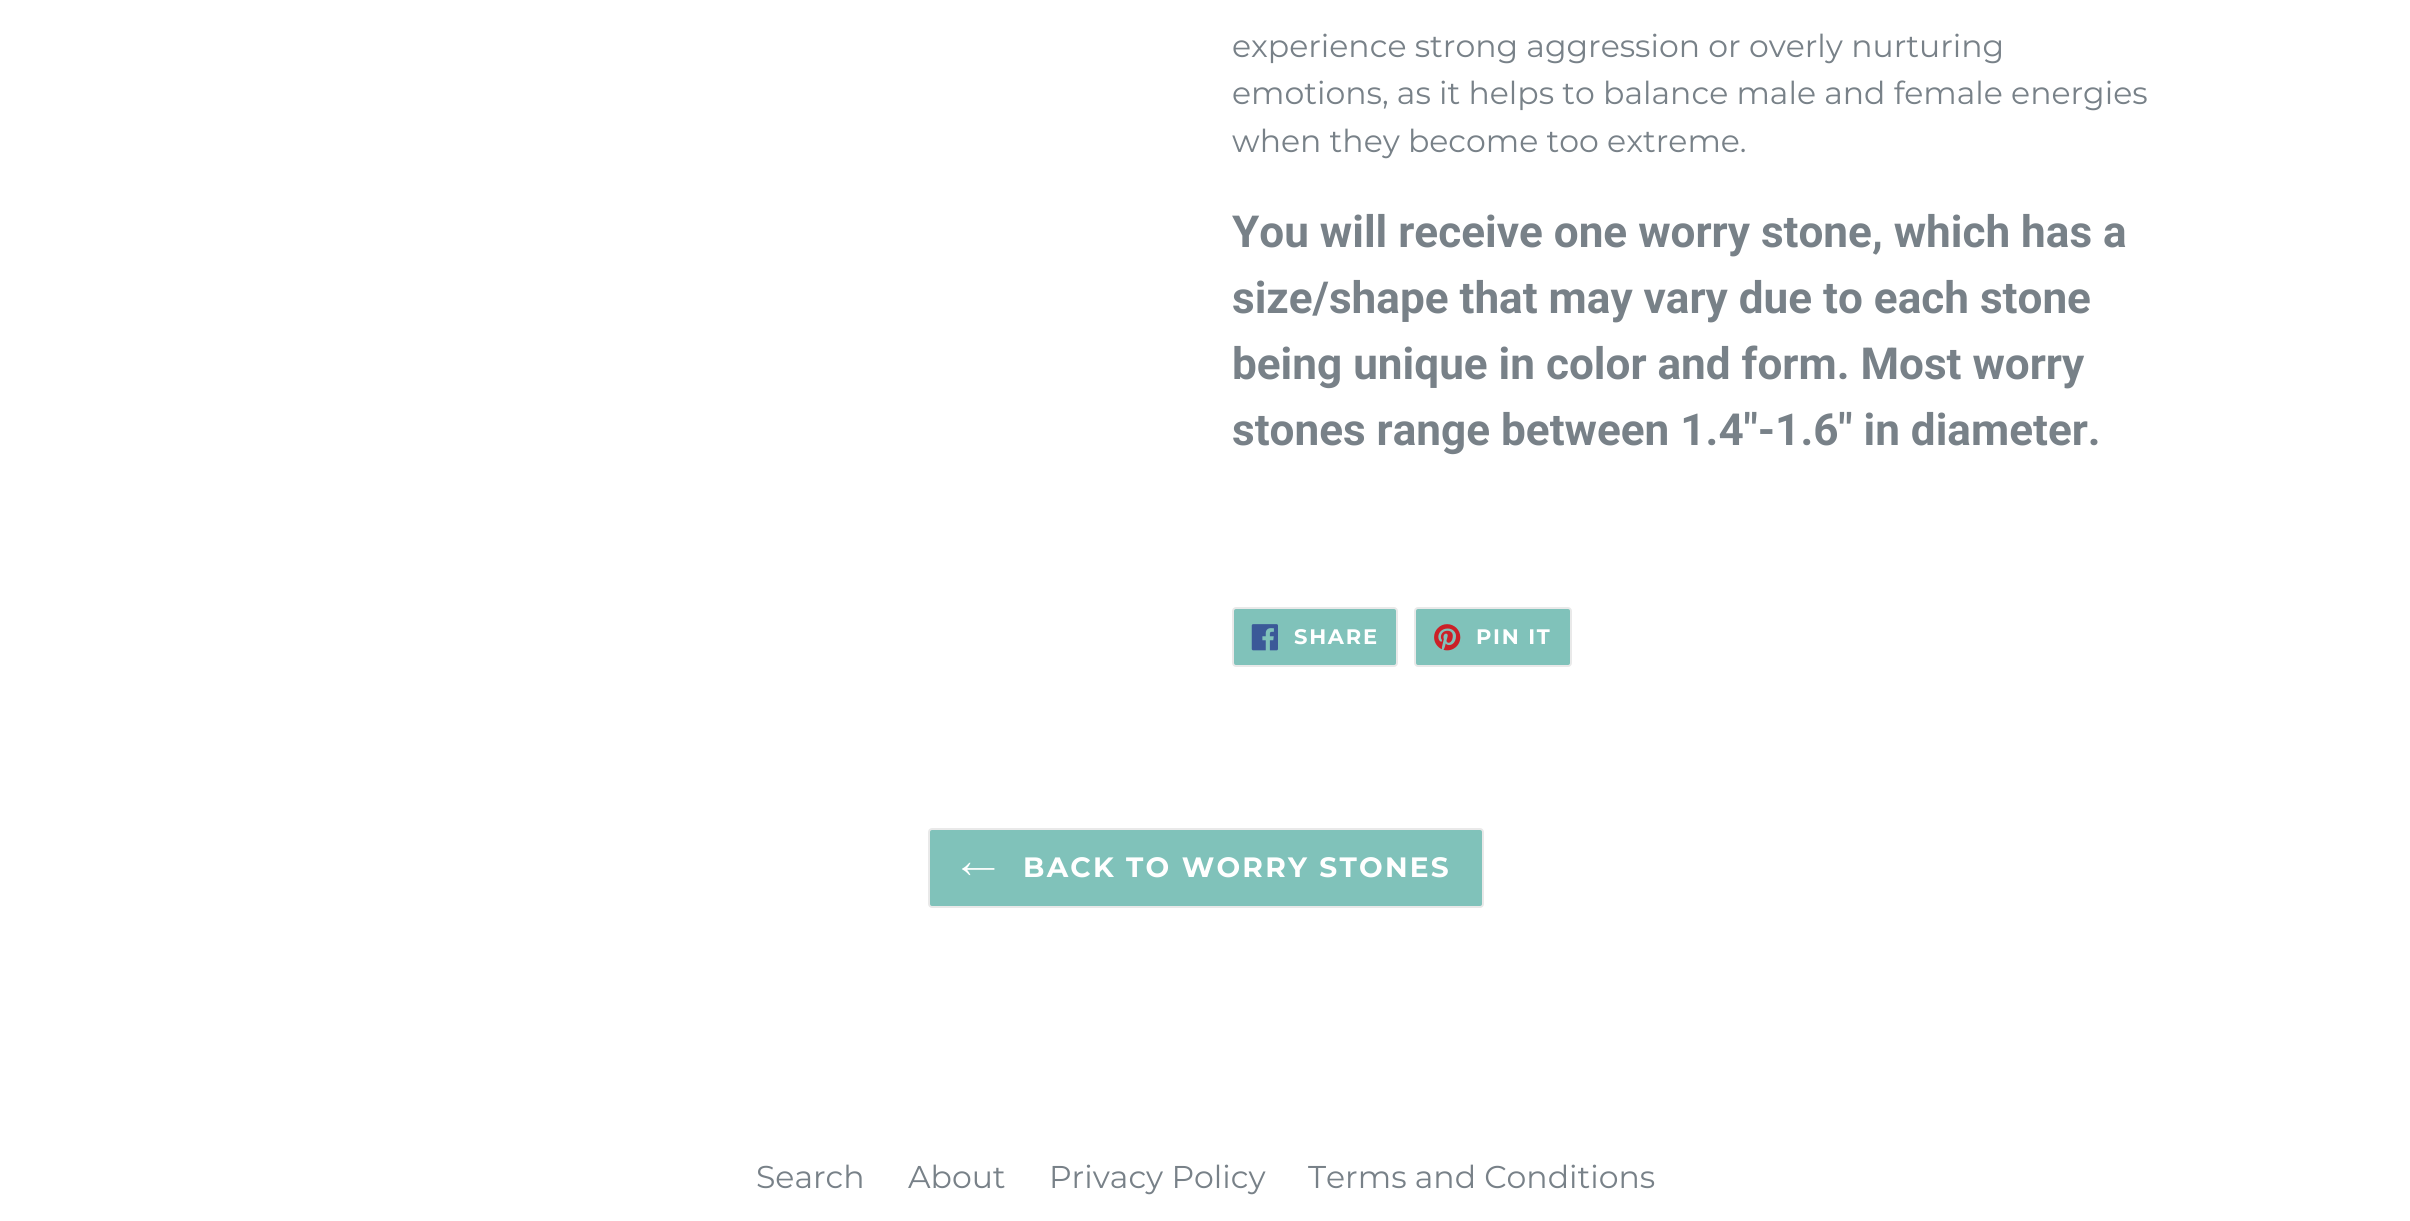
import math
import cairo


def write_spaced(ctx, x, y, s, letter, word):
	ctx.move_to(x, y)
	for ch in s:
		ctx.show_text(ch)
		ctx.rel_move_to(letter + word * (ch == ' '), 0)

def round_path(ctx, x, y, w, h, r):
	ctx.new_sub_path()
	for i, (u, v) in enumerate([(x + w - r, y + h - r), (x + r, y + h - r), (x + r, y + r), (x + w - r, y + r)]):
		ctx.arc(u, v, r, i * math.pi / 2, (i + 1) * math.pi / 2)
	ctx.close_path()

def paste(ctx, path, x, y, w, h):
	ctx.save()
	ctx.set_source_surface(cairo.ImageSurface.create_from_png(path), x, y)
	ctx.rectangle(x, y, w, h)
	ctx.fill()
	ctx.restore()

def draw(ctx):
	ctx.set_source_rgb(1, 1, 1)
	ctx.paint()
	ctx.select_font_face('Montserrat')
	ctx.set_font_size(31.5)
	ctx.set_source_rgb(0.471, 0.506, 0.533)
	for x, y, s in [
		(1232, 57, 'experience strong aggression or overly nurturing'),
		(1232, 104, 'emotions, as it helps to balance male and female energies'),
		(1232, 152, 'when they become too extreme.'),
	]:
		ctx.move_to(x, y)
		ctx.show_text(s)
	ctx.select_font_face('Roboto', cairo.FONT_SLANT_NORMAL, cairo.FONT_WEIGHT_BOLD)
	ctx.set_font_size(44.1)
	for x, y, s in [
		(1232, 247, 'You will receive one worry stone, which has a'),
		(1232, 313, 'size/shape that may vary due to each stone'),
		(1232, 379, 'being unique in color and form. Most worry'),
		(1232, 445, 'stones range between 1.4"-1.6" in diameter.'),
	]:
		ctx.move_to(x, y)
		ctx.show_text(s)
	ctx.set_source_rgb(0.502, 0.761, 0.729)
	round_path(ctx, 1233, 608, 164, 58, 3)
	ctx.fill_preserve()
	ctx.set_source_rgb(0.914, 0.914, 0.914)
	ctx.stroke()
	paste(ctx, 'media/1.png', 1251, 624, 27, 27)
	ctx.select_font_face('Montserrat', cairo.FONT_SLANT_NORMAL, cairo.FONT_WEIGHT_BOLD)
	ctx.set_font_size(21)
	ctx.set_source_rgb(1, 1, 1)
	write_spaced(ctx, 1294, 644, 'SHARE', 1.75, 0)
	ctx.set_source_rgb(0.502, 0.761, 0.729)
	round_path(ctx, 1415, 608, 156, 58, 3)
	ctx.fill_preserve()
	ctx.set_source_rgb(0.914, 0.914, 0.914)
	ctx.stroke()
	paste(ctx, 'media/2.png', 1434, 624, 27, 27)
	ctx.set_source_rgb(1, 1, 1)
	write_spaced(ctx, 1476, 644, 'PIN IT', 1.75, 0)
	ctx.set_source_rgb(0.502, 0.761, 0.729)
	round_path(ctx, 929, 829, 554, 78, 3)
	ctx.fill_preserve()
	ctx.set_source_rgb(0.914, 0.914, 0.914)
	ctx.stroke()
	paste(ctx, 'media/3.png', 962, 862, 33, 14)
	ctx.set_font_size(28)
	ctx.set_source_rgb(1, 1, 1)
	write_spaced(ctx, 1023, 877, 'BACK TO WORRY STONES', 2.25, 0)
	ctx.select_font_face('Montserrat')
	ctx.set_font_size(31.5)
	ctx.set_source_rgb(0.471, 0.506, 0.533)
	for x, y, s in [
		(756, 1188, 'Search'),
		(908, 1188, 'About'),
		(1049, 1188, 'Privacy Policy'),
		(1308, 1188, 'Terms and Conditions'),
	]:
		ctx.move_to(x, y)
		ctx.show_text(s)


surface = cairo.ImageSurface(cairo.FORMAT_RGB24, 2410, 1221)
ctx = cairo.Context(surface)
options = cairo.FontOptions()
options.set_hint_metrics(cairo.HINT_METRICS_OFF)
options.set_hint_style(cairo.HINT_STYLE_NONE)
ctx.set_font_options(options)
ctx.set_miter_limit(4)
draw(ctx)
surface.write_to_png('image.png')
